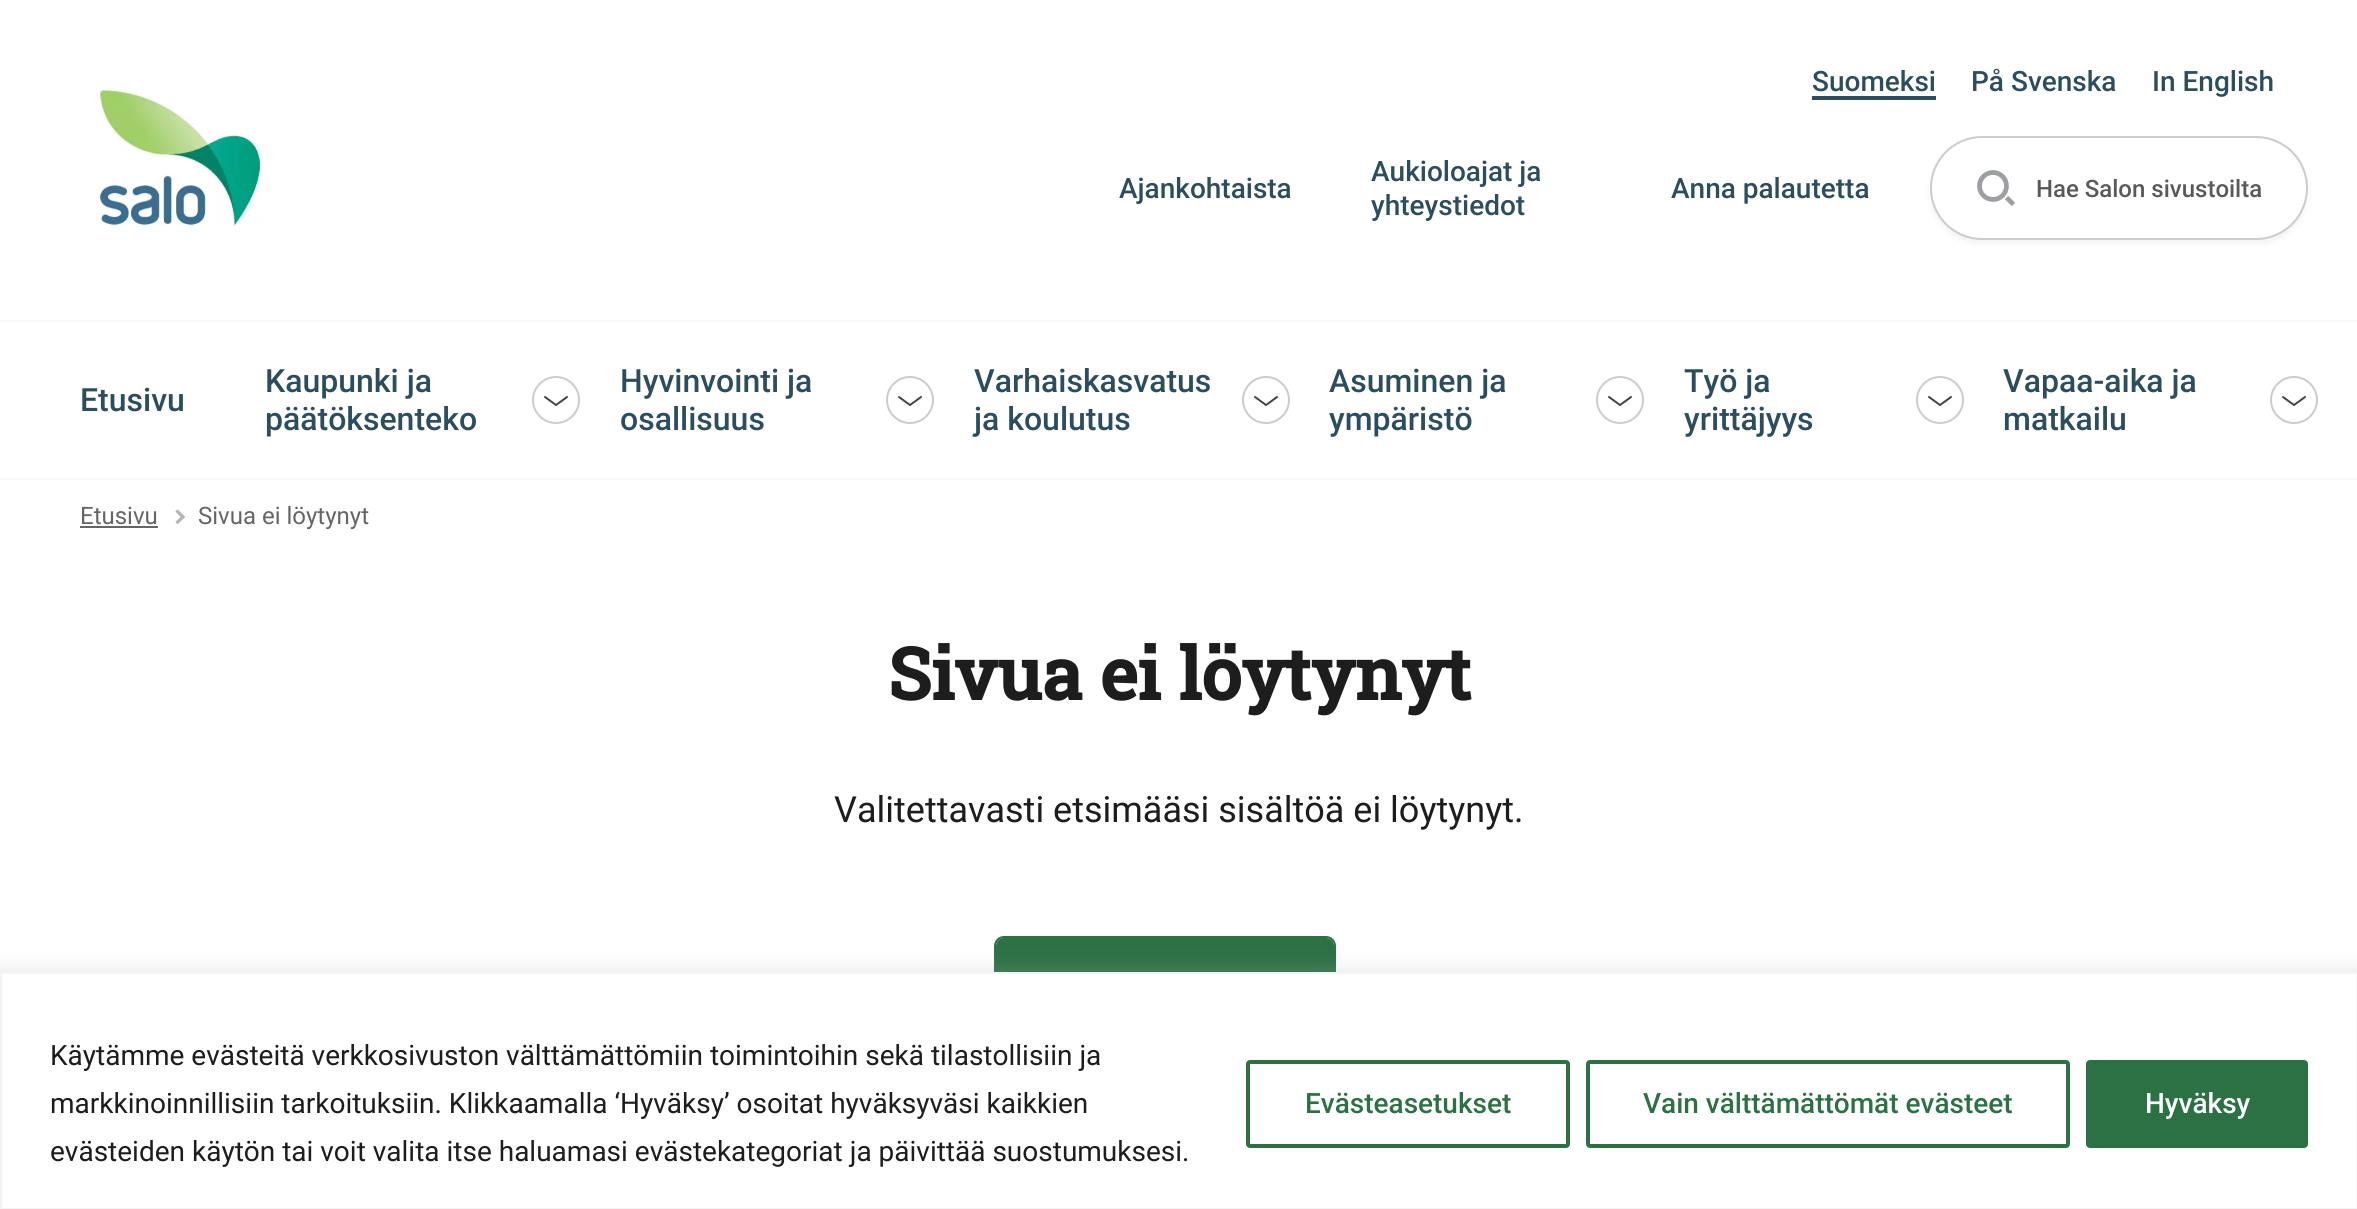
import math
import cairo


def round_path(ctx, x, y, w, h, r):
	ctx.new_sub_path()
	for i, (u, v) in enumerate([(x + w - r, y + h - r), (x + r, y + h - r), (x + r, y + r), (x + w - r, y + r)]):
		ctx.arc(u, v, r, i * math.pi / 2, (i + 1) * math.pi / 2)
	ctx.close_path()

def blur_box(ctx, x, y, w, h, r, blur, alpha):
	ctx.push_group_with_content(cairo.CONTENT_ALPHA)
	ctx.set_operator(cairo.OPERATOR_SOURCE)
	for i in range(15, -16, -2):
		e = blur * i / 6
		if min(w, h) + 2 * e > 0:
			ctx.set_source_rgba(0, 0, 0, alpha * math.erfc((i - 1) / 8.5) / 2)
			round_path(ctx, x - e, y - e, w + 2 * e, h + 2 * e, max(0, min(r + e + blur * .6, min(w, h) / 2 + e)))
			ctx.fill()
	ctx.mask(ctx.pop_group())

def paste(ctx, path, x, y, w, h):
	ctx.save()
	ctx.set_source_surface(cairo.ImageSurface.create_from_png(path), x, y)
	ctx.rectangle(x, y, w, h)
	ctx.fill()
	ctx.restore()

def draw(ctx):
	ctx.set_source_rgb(1, 1, 1)
	ctx.paint()
	paste(ctx, 'media/1.png', 100, 90, 163, 136)
	ctx.select_font_face('Roboto Medium')
	ctx.set_font_size(28)
	ctx.set_source_rgb(0.169, 0.302, 0.369)
	ctx.move_to(1812, 91)
	ctx.show_text('Suomeksi')
	ctx.rectangle(1812, 96, 124, 4)
	ctx.fill()
	for x, y, s in [
		(1971, 91, 'På Svenska'),
		(2152, 91, 'In English'),
		(1119, 198, 'Ajankohtaista'),
		(1371, 181, 'Aukioloajat ja'),
		(1371, 215, 'yhteystiedot'),
		(1671, 198, 'Anna palautetta'),
	]:
		ctx.move_to(x, y)
		ctx.show_text(s)
	ctx.set_source_rgb(0, 0, 0)
	blur_box(ctx, 1930, 140, 378, 104, 52, 3, 0.05)
	ctx.set_source_rgb(1, 1, 1)
	round_path(ctx, 1931, 137, 376, 102, 51)
	ctx.fill_preserve()
	ctx.set_source_rgb(0.8, 0.8, 0.8)
	ctx.stroke()
	ctx.arc(1993, 186, 13.5, 0, 2 * math.pi)
	ctx.set_source_rgb(0.62, 0.624, 0.635)
	ctx.set_line_width(4.8)
	ctx.stroke()
	ctx.new_path()
	ctx.move_to(2006.5, 197.5)
	ctx.line_to(2013.5, 204.5)
	ctx.stroke()
	ctx.set_font_size(24)
	ctx.set_source_rgb(0.349, 0.349, 0.349)
	ctx.move_to(2036, 197)
	ctx.show_text('Hae Salon sivustoilta')
	ctx.set_source_rgb(0.973, 0.973, 0.973)
	ctx.rectangle(0, 320, 2357, 2)
	ctx.fill()
	ctx.set_font_size(32)
	ctx.set_source_rgb(0.169, 0.302, 0.369)
	for x, y, s in [
		(80, 411, 'Etusivu'),
		(265, 392, 'Kaupunki ja'),
		(265, 430, 'päätöksenteko'),
	]:
		ctx.move_to(x, y)
		ctx.show_text(s)
	paste(ctx, 'media/2.png', 544, 396, 24, 10)
	ctx.arc(556, 400, 23, 0, 2 * math.pi)
	ctx.set_source_rgb(0.8, 0.8, 0.8)
	ctx.set_line_width(2)
	ctx.stroke()
	ctx.set_source_rgb(0.169, 0.302, 0.369)
	ctx.move_to(620, 392)
	ctx.show_text('Hyvinvointi ja')
	ctx.move_to(620, 430)
	ctx.show_text('osallisuus')
	paste(ctx, 'media/2.png', 898, 396, 24, 10)
	ctx.arc(910, 400, 23, 0, 2 * math.pi)
	ctx.set_source_rgb(0.8, 0.8, 0.8)
	ctx.stroke()
	ctx.set_source_rgb(0.169, 0.302, 0.369)
	ctx.move_to(974, 392)
	ctx.show_text('Varhaiskasvatus')
	ctx.move_to(974, 430)
	ctx.show_text('ja koulutus')
	paste(ctx, 'media/2.png', 1254, 396, 24, 10)
	ctx.arc(1266, 400, 23, 0, 2 * math.pi)
	ctx.set_source_rgb(0.8, 0.8, 0.8)
	ctx.stroke()
	ctx.set_source_rgb(0.169, 0.302, 0.369)
	ctx.move_to(1329, 392)
	ctx.show_text('Asuminen ja')
	ctx.move_to(1329, 430)
	ctx.show_text('ympäristö')
	paste(ctx, 'media/2.png', 1608, 396, 24, 10)
	ctx.arc(1620, 400, 23, 0, 2 * math.pi)
	ctx.set_source_rgb(0.8, 0.8, 0.8)
	ctx.stroke()
	ctx.set_source_rgb(0.169, 0.302, 0.369)
	ctx.move_to(1684, 392)
	ctx.show_text('Työ ja')
	ctx.move_to(1684, 430)
	ctx.show_text('yrittäjyys')
	paste(ctx, 'media/2.png', 1928, 396, 24, 10)
	ctx.arc(1940, 400, 23, 0, 2 * math.pi)
	ctx.set_source_rgb(0.8, 0.8, 0.8)
	ctx.stroke()
	ctx.set_source_rgb(0.169, 0.302, 0.369)
	ctx.move_to(2003, 392)
	ctx.show_text('Vapaa-aika ja')
	ctx.move_to(2003, 430)
	ctx.show_text('matkailu')
	paste(ctx, 'media/2.png', 2282, 396, 24, 10)
	ctx.arc(2294, 400, 23, 0, 2 * math.pi)
	ctx.set_source_rgb(0.8, 0.8, 0.8)
	ctx.stroke()
	ctx.set_source_rgb(0.973, 0.973, 0.973)
	ctx.rectangle(0, 478, 2357, 2)
	ctx.fill()
	ctx.select_font_face('Roboto')
	ctx.set_font_size(24)
	ctx.set_source_rgb(0.396, 0.396, 0.396)
	ctx.move_to(80, 524)
	ctx.show_text('Etusivu')
	ctx.rectangle(80, 526, 78, 2)
	ctx.fill()
	ctx.new_path()
	ctx.move_to(176.5, 510.5)
	ctx.line_to(183, 517)
	ctx.line_to(176.5, 523)
	ctx.set_source_rgb(0.706, 0.706, 0.702)
	ctx.set_line_width(3.2)
	ctx.stroke()
	ctx.set_source_rgb(0.396, 0.396, 0.396)
	ctx.move_to(198, 524)
	ctx.show_text('Sivua ei löytynyt')
	ctx.select_font_face('Roboto Slab', cairo.FONT_SLANT_NORMAL, cairo.FONT_WEIGHT_BOLD)
	ctx.set_font_size(72)
	ctx.set_source_rgb(0.114, 0.114, 0.114)
	ctx.move_to(888, 700)
	ctx.show_text('Sivua ei löytynyt')
	ctx.select_font_face('Roboto')
	ctx.set_font_size(36)
	ctx.move_to(834, 822)
	ctx.show_text('Valitettavasti etsimääsi sisältöä ei löytynyt.')
	round_path(ctx, 995, 937, 340, 100, 9)
	ctx.set_source_rgb(0.173, 0.443, 0.271)
	ctx.set_line_width(2)
	ctx.stroke()
	round_path(ctx, 996, 938, 338, 98, 8)
	ctx.fill()
	ctx.set_source_rgb(0.675, 0.671, 0.671)
	blur_box(ctx, 0, 970, 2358, 238, 0, 10, 0.3)
	ctx.set_source_rgb(1, 1, 1)
	ctx.rectangle(1, 973, 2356, 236)
	ctx.fill_preserve()
	ctx.set_source_rgb(0.957, 0.957, 0.957)
	ctx.stroke()
	ctx.set_font_size(28)
	ctx.set_source_rgb(0.114, 0.114, 0.114)
	for x, y, s in [
		(50, 1065, 'Käytämme evästeitä verkkosivuston välttämättömiin toimintoihin sekä tilastollisiin ja'),
		(50, 1113, 'markkinoinnillisiin tarkoituksiin. Klikkaamalla ‘Hyväksy’ osoitat hyväksyväsi kaikkien'),
		(50, 1161, 'evästeiden käytön tai voit valita itse haluamasi evästekategoriat ja päivittää suostumuksesi.'),
	]:
		ctx.move_to(x, y)
		ctx.show_text(s)
	round_path(ctx, 1248, 1062, 320, 84, 2)
	ctx.set_source_rgb(0.173, 0.443, 0.267)
	ctx.set_line_width(4)
	ctx.stroke()
	ctx.select_font_face('Roboto Medium')
	ctx.move_to(1305, 1113)
	ctx.show_text('Evästeasetukset')
	round_path(ctx, 1588, 1062, 480, 84, 2)
	ctx.stroke()
	ctx.move_to(1643, 1113)
	ctx.show_text('Vain välttämättömät evästeet')
	round_path(ctx, 2088, 1062, 218, 84, 2)
	ctx.fill_preserve()
	ctx.stroke()
	ctx.set_source_rgb(1, 1, 1)
	ctx.move_to(2145, 1113)
	ctx.show_text('Hyväksy')


surface = cairo.ImageSurface(cairo.FORMAT_RGB24, 2357, 1209)
ctx = cairo.Context(surface)
options = cairo.FontOptions()
options.set_hint_metrics(cairo.HINT_METRICS_OFF)
options.set_hint_style(cairo.HINT_STYLE_NONE)
ctx.set_font_options(options)
ctx.set_miter_limit(4)
draw(ctx)
surface.write_to_png('image.png')
